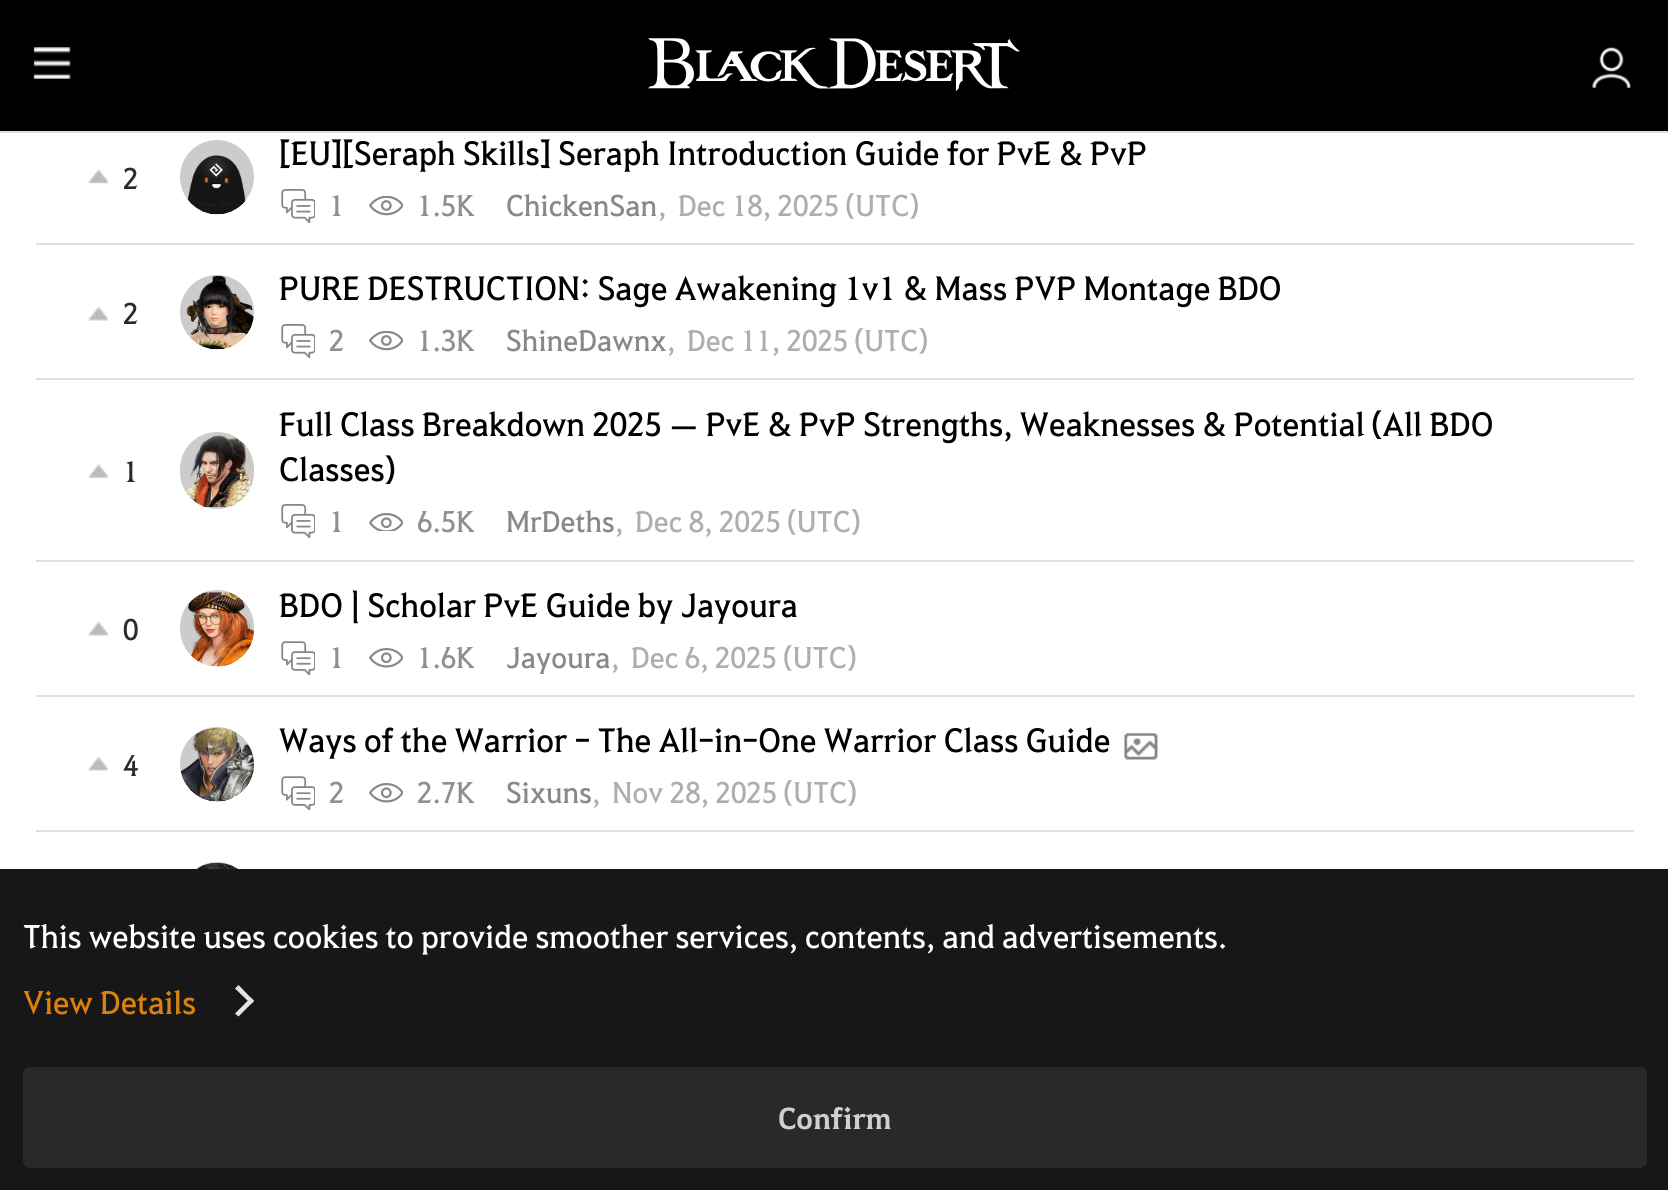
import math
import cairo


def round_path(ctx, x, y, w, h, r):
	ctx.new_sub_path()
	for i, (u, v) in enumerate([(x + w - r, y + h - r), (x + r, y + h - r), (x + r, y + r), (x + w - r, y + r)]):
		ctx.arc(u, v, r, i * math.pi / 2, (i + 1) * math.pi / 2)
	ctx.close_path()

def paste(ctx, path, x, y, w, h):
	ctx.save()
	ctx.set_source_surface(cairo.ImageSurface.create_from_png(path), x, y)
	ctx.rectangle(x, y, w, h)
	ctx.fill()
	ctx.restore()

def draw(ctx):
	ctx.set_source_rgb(1, 1, 1)
	ctx.paint()
	ctx.set_source_rgb(0, 0, 0)
	ctx.rectangle(0, 0, 1668, 131)
	ctx.fill()
	paste(ctx, 'media/1.png', 33, 47, 38, 32)
	paste(ctx, 'media/2.png', 648, 38, 372, 53)
	paste(ctx, 'media/3.png', 1592, 47, 39, 41)
	ctx.set_source_rgb(0.875, 0.875, 0.875)
	ctx.rectangle(0, 131, 1668, 2)
	ctx.fill()
	ctx.rectangle(36, 243, 1598, 2)
	ctx.fill()
	ctx.select_font_face('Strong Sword')
	ctx.set_font_size(32.3)
	ctx.set_source_rgb(0, 0, 0)
	ctx.move_to(279, 165)
	ctx.show_text('[EU][Seraph Skills] Seraph Introduction Guide for PvE & PvP')
	paste(ctx, 'media/4.png', 88, 169, 21, 15)
	ctx.set_font_size(28.75)
	ctx.set_source_rgb(0.169, 0.169, 0.169)
	ctx.move_to(123, 189)
	ctx.show_text('2')
	paste(ctx, 'media/5.png', 281, 189, 34, 34)
	ctx.set_source_rgb(0.561, 0.561, 0.561)
	ctx.move_to(329, 216)
	ctx.show_text('1')
	paste(ctx, 'media/6.png', 369, 196, 34, 20)
	ctx.move_to(417, 216)
	ctx.show_text('1.5K')
	ctx.set_source_rgb(0.8, 0.8, 0.8)
	ctx.new_path()
	ctx.arc(217, 177, 37, 0, 2 * math.pi)
	ctx.fill()
	paste(ctx, 'media/7.png', 187, 155, 59, 60)
	ctx.set_source_rgb(0.533, 0.533, 0.533)
	ctx.move_to(506, 216)
	ctx.show_text('ChickenSan')
	ctx.set_source_rgb(0.682, 0.682, 0.682)
	ctx.move_to(658, 216)
	ctx.show_text(',')
	ctx.move_to(678, 216)
	ctx.show_text('Dec 18, 2025 (UTC)')
	ctx.set_source_rgb(0.875, 0.875, 0.875)
	ctx.rectangle(36, 378, 1598, 2)
	ctx.fill()
	ctx.set_font_size(32.3)
	ctx.set_source_rgb(0, 0, 0)
	ctx.move_to(279, 300)
	ctx.show_text('PURE DESTRUCTION: Sage Awakening 1v1 & Mass PVP Montage BDO')
	paste(ctx, 'media/8.png', 88, 306, 20, 15)
	ctx.set_font_size(28.75)
	ctx.set_source_rgb(0.169, 0.169, 0.169)
	ctx.move_to(123, 324)
	ctx.show_text('2')
	paste(ctx, 'media/5.png', 281, 324, 34, 34)
	ctx.set_source_rgb(0.561, 0.561, 0.561)
	ctx.move_to(329, 351)
	ctx.show_text('2')
	paste(ctx, 'media/6.png', 369, 331, 34, 20)
	ctx.move_to(417, 351)
	ctx.show_text('1.3K')
	ctx.set_source_rgb(0.8, 0.8, 0.8)
	ctx.new_path()
	ctx.arc(217, 312, 37, 0, 2 * math.pi)
	ctx.fill()
	paste(ctx, 'media/9.png', 186, 275, 68, 75)
	ctx.set_source_rgb(0.533, 0.533, 0.533)
	ctx.move_to(506, 351)
	ctx.show_text('ShineDawnx')
	ctx.set_source_rgb(0.682, 0.682, 0.682)
	ctx.move_to(667, 351)
	ctx.show_text(',')
	ctx.move_to(687, 351)
	ctx.show_text('Dec 11, 2025 (UTC)')
	ctx.set_source_rgb(0.875, 0.875, 0.875)
	ctx.rectangle(36, 560, 1598, 2)
	ctx.fill()
	paste(ctx, 'media/10.png', 88, 464, 21, 15)
	ctx.set_source_rgb(0.169, 0.169, 0.169)
	ctx.move_to(123, 482)
	ctx.show_text('1')
	ctx.set_font_size(32.3)
	ctx.set_source_rgb(0, 0, 0)
	ctx.move_to(279, 436)
	ctx.show_text('Full Class Breakdown 2025 — PvE & PvP Strengths, Weaknesses & Potential (All BDO')
	ctx.move_to(279, 481)
	ctx.show_text('Classes)')
	paste(ctx, 'media/11.png', 281, 504, 34, 35)
	ctx.set_font_size(28.75)
	ctx.set_source_rgb(0.561, 0.561, 0.561)
	ctx.move_to(329, 532)
	ctx.show_text('1')
	paste(ctx, 'media/12.png', 369, 513, 34, 18)
	ctx.move_to(417, 532)
	ctx.show_text('6.5K')
	ctx.set_source_rgb(0.8, 0.8, 0.8)
	round_path(ctx, 180, 432, 74, 77, 37)
	ctx.fill()
	paste(ctx, 'media/13.png', 186, 435, 68, 72)
	ctx.set_source_rgb(0.533, 0.533, 0.533)
	ctx.move_to(506, 532)
	ctx.show_text('MrDeths')
	ctx.set_source_rgb(0.682, 0.682, 0.682)
	ctx.move_to(615, 532)
	ctx.show_text(',')
	ctx.move_to(635, 532)
	ctx.show_text('Dec 8, 2025 (UTC)')
	ctx.set_source_rgb(0.875, 0.875, 0.875)
	ctx.rectangle(36, 695, 1598, 2)
	ctx.fill()
	ctx.set_font_size(32.3)
	ctx.set_source_rgb(0, 0, 0)
	ctx.move_to(279, 617)
	ctx.show_text('BDO | Scholar PvE Guide by Jayoura')
	paste(ctx, 'media/14.png', 88, 621, 21, 15)
	ctx.set_font_size(28.75)
	ctx.set_source_rgb(0.169, 0.169, 0.169)
	ctx.move_to(123, 640)
	ctx.show_text('0')
	paste(ctx, 'media/15.png', 281, 641, 34, 34)
	ctx.set_source_rgb(0.561, 0.561, 0.561)
	ctx.move_to(329, 668)
	ctx.show_text('1')
	paste(ctx, 'media/16.png', 369, 648, 34, 20)
	ctx.move_to(417, 668)
	ctx.show_text('1.6K')
	ctx.set_source_rgb(0.8, 0.8, 0.8)
	round_path(ctx, 180, 590, 74, 76, 37)
	ctx.fill()
	paste(ctx, 'media/17.png', 188, 592, 66, 75)
	ctx.set_source_rgb(0.533, 0.533, 0.533)
	ctx.move_to(506, 668)
	ctx.show_text('Jayoura')
	ctx.set_source_rgb(0.682, 0.682, 0.682)
	ctx.move_to(611, 668)
	ctx.show_text(',')
	ctx.move_to(631, 668)
	ctx.show_text('Dec 6, 2025 (UTC)')
	ctx.set_source_rgb(0.875, 0.875, 0.875)
	ctx.rectangle(36, 830, 1598, 2)
	ctx.fill()
	ctx.set_font_size(32.3)
	ctx.set_source_rgb(0, 0, 0)
	ctx.move_to(279, 752)
	ctx.show_text('Ways of the Warrior - The All-in-One Warrior Class Guide')
	paste(ctx, 'media/18.png', 1124, 733, 34, 27)
	paste(ctx, 'media/14.png', 88, 756, 21, 15)
	ctx.set_font_size(28.75)
	ctx.set_source_rgb(0.169, 0.169, 0.169)
	ctx.move_to(123, 776)
	ctx.show_text('4')
	paste(ctx, 'media/15.png', 281, 776, 34, 34)
	ctx.set_source_rgb(0.561, 0.561, 0.561)
	ctx.move_to(329, 803)
	ctx.show_text('2')
	paste(ctx, 'media/16.png', 369, 783, 34, 20)
	ctx.move_to(417, 803)
	ctx.show_text('2.7K')
	ctx.set_source_rgb(0.8, 0.8, 0.8)
	ctx.new_path()
	ctx.arc(217, 764, 37, 0, 2 * math.pi)
	ctx.fill()
	paste(ctx, 'media/19.png', 180, 727, 74, 75)
	ctx.set_source_rgb(0.533, 0.533, 0.533)
	ctx.move_to(506, 803)
	ctx.show_text('Sixuns')
	ctx.set_source_rgb(0.682, 0.682, 0.682)
	ctx.move_to(592, 803)
	ctx.show_text(',')
	ctx.move_to(612, 803)
	ctx.show_text('Nov 28, 2025 (UTC)')
	ctx.set_source_rgb(0.8, 0.8, 0.8)
	ctx.new_path()
	ctx.arc(217, 899, 37, 0, 2 * math.pi)
	ctx.fill()
	paste(ctx, 'media/20.png', 197, 862, 41, 7)
	ctx.set_source_rgb(0.09, 0.09, 0.09)
	ctx.rectangle(0, 869, 1668, 321)
	ctx.fill()
	ctx.set_font_size(31.5)
	ctx.set_source_rgb(1, 1, 1)
	ctx.move_to(23, 948)
	ctx.show_text('This website uses cookies to provide smoother services, contents, and advertisements.')
	ctx.set_source_rgb(0.859, 0.506, 0.051)
	ctx.move_to(23, 1014)
	ctx.show_text('View Details')
	ctx.set_source_rgb(0.894, 0.894, 0.894)
	ctx.new_path()
	ctx.move_to(238.5, 985)
	ctx.line_to(254, 1001)
	ctx.line_to(251, 1004)
	ctx.line_to(235, 988.5)
	ctx.close_path()
	ctx.fill()
	ctx.new_path()
	ctx.move_to(251, 997.5)
	ctx.line_to(254, 1001)
	ctx.line_to(238.5, 1016.5)
	ctx.line_to(235, 1013.5)
	ctx.close_path()
	ctx.fill()
	ctx.set_source_rgb(0.161, 0.161, 0.161)
	round_path(ctx, 25.5, 1069.5, 1619, 96, 4.5)
	ctx.fill_preserve()
	ctx.set_line_width(5)
	ctx.stroke()
	ctx.select_font_face('Strong Sword', cairo.FONT_SLANT_NORMAL, cairo.FONT_WEIGHT_BOLD)
	ctx.set_font_size(29)
	ctx.set_source_rgb(0.812, 0.812, 0.812)
	ctx.move_to(778, 1129)
	ctx.show_text('Confirm')


surface = cairo.ImageSurface(cairo.FORMAT_RGB24, 1668, 1190)
ctx = cairo.Context(surface)
options = cairo.FontOptions()
options.set_hint_metrics(cairo.HINT_METRICS_OFF)
options.set_hint_style(cairo.HINT_STYLE_NONE)
ctx.set_font_options(options)
ctx.set_miter_limit(4)
draw(ctx)
surface.write_to_png('image.png')
